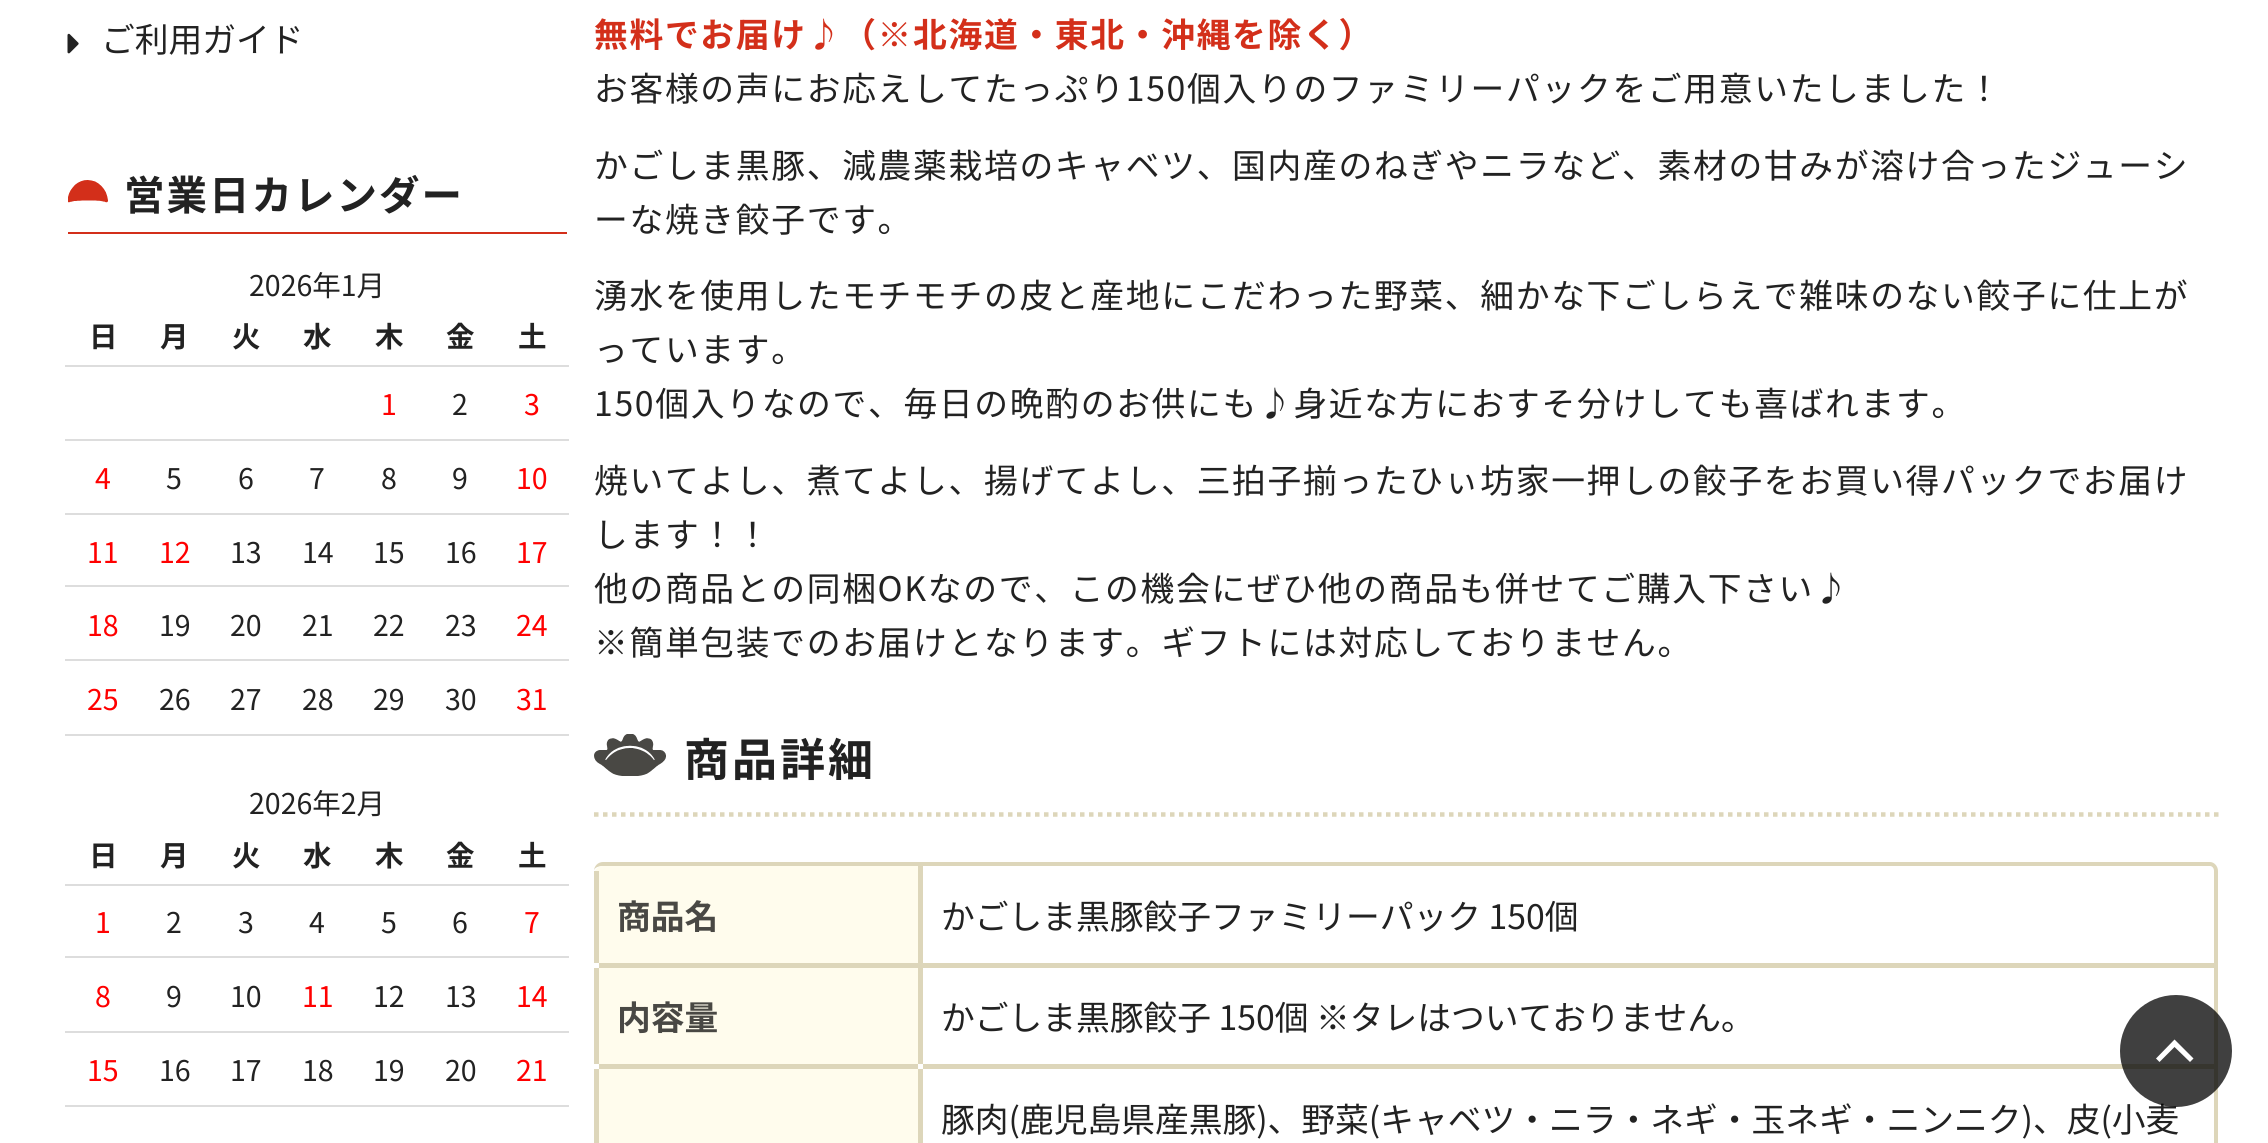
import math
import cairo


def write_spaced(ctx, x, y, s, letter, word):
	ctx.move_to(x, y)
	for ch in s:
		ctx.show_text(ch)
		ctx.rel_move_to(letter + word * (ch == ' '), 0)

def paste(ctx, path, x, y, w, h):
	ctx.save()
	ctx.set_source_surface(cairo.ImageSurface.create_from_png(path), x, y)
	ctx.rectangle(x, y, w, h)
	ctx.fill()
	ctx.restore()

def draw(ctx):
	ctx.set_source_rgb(1, 1, 1)
	ctx.paint()
	paste(ctx, 'media/1.png', 67, 33, 12, 21)
	ctx.select_font_face('Noto Sans JP')
	ctx.set_font_size(33.75)
	ctx.set_source_rgb(0.133, 0.133, 0.133)
	ctx.move_to(101, 52)
	ctx.show_text('ご利用ガイド')
	ctx.set_source_rgb(0.827, 0.184, 0.102)
	ctx.rectangle(68, 232, 499, 2)
	ctx.fill()
	paste(ctx, 'media/2.png', 68, 180, 40, 23)
	ctx.select_font_face('Noto Sans JP', cairo.FONT_SLANT_NORMAL, cairo.FONT_WEIGHT_BOLD)
	ctx.set_font_size(40.5)
	ctx.set_source_rgb(0.133, 0.133, 0.133)
	write_spaced(ctx, 124, 210, '営業日カレンダー', 2, 0)
	ctx.select_font_face('Noto Sans JP')
	ctx.set_font_size(28.5)
	ctx.move_to(249, 296)
	ctx.show_text('2026年1月')
	ctx.select_font_face('Noto Sans JP', cairo.FONT_SLANT_NORMAL, cairo.FONT_WEIGHT_BOLD)
	for x, y, s in [
		(89, 347, '日'),
		(160, 347, '月'),
		(232, 347, '火'),
		(303, 347, '水'),
		(375, 347, '木'),
		(446, 347, '金'),
	]:
		ctx.move_to(x, y)
		ctx.show_text(s)
	ctx.set_source_rgb(0.867, 0.867, 0.867)
	ctx.rectangle(65, 365, 504, 2)
	ctx.fill()
	ctx.set_source_rgb(0.133, 0.133, 0.133)
	ctx.move_to(518, 347)
	ctx.show_text('土')
	ctx.select_font_face('Noto Sans JP')
	ctx.set_source_rgb(1, 0, 0)
	ctx.move_to(381, 415)
	ctx.show_text('1')
	ctx.set_source_rgb(0.133, 0.133, 0.133)
	ctx.move_to(452, 415)
	ctx.show_text('2')
	ctx.set_source_rgb(0.867, 0.867, 0.867)
	ctx.rectangle(65, 439, 504, 2)
	ctx.fill()
	ctx.set_source_rgb(1, 0, 0)
	ctx.move_to(524, 415)
	ctx.show_text('3')
	ctx.move_to(95, 489)
	ctx.show_text('4')
	ctx.set_source_rgb(0.133, 0.133, 0.133)
	for x, y, s in [
		(166, 489, '5'),
		(238, 489, '6'),
		(309, 489, '7'),
		(381, 489, '8'),
		(452, 489, '9'),
	]:
		ctx.move_to(x, y)
		ctx.show_text(s)
	ctx.set_source_rgb(0.867, 0.867, 0.867)
	ctx.rectangle(65, 513, 504, 2)
	ctx.fill()
	ctx.set_source_rgb(1, 0, 0)
	for x, y, s in [
		(516, 489, '10'),
		(87, 563, '11'),
		(159, 563, '12'),
	]:
		ctx.move_to(x, y)
		ctx.show_text(s)
	ctx.set_source_rgb(0.133, 0.133, 0.133)
	for x, y, s in [
		(230, 563, '13'),
		(302, 563, '14'),
		(373, 563, '15'),
		(445, 563, '16'),
	]:
		ctx.move_to(x, y)
		ctx.show_text(s)
	ctx.set_source_rgb(0.867, 0.867, 0.867)
	ctx.rectangle(65, 585, 504, 2)
	ctx.fill()
	ctx.set_source_rgb(1, 0, 0)
	ctx.move_to(516, 563)
	ctx.show_text('17')
	ctx.move_to(87, 636)
	ctx.show_text('18')
	ctx.set_source_rgb(0.133, 0.133, 0.133)
	for x, y, s in [
		(159, 636, '19'),
		(230, 636, '20'),
		(302, 636, '21'),
		(373, 636, '22'),
		(445, 636, '23'),
	]:
		ctx.move_to(x, y)
		ctx.show_text(s)
	ctx.set_source_rgb(0.867, 0.867, 0.867)
	ctx.rectangle(65, 659, 504, 2)
	ctx.fill()
	ctx.set_source_rgb(1, 0, 0)
	ctx.move_to(516, 636)
	ctx.show_text('24')
	ctx.move_to(87, 710)
	ctx.show_text('25')
	ctx.set_source_rgb(0.133, 0.133, 0.133)
	for x, y, s in [
		(159, 710, '26'),
		(230, 710, '27'),
		(302, 710, '28'),
		(373, 710, '29'),
		(445, 710, '30'),
	]:
		ctx.move_to(x, y)
		ctx.show_text(s)
	ctx.set_source_rgb(0.867, 0.867, 0.867)
	ctx.rectangle(65, 734, 504, 2)
	ctx.fill()
	ctx.set_source_rgb(1, 0, 0)
	ctx.move_to(516, 710)
	ctx.show_text('31')
	ctx.set_source_rgb(0.133, 0.133, 0.133)
	ctx.move_to(249, 814)
	ctx.show_text('2026年2月')
	ctx.select_font_face('Noto Sans JP', cairo.FONT_SLANT_NORMAL, cairo.FONT_WEIGHT_BOLD)
	for x, y, s in [
		(89, 866, '日'),
		(160, 866, '月'),
		(232, 866, '火'),
		(303, 866, '水'),
		(375, 866, '木'),
		(446, 866, '金'),
	]:
		ctx.move_to(x, y)
		ctx.show_text(s)
	ctx.set_source_rgb(0.867, 0.867, 0.867)
	ctx.rectangle(65, 884, 504, 2)
	ctx.fill()
	ctx.set_source_rgb(0.133, 0.133, 0.133)
	ctx.move_to(518, 866)
	ctx.show_text('土')
	ctx.select_font_face('Noto Sans JP')
	ctx.set_source_rgb(1, 0, 0)
	ctx.move_to(95, 933)
	ctx.show_text('1')
	ctx.set_source_rgb(0.133, 0.133, 0.133)
	for x, y, s in [
		(166, 933, '2'),
		(238, 933, '3'),
		(309, 933, '4'),
		(381, 933, '5'),
		(452, 933, '6'),
	]:
		ctx.move_to(x, y)
		ctx.show_text(s)
	ctx.set_source_rgb(0.867, 0.867, 0.867)
	ctx.rectangle(65, 956, 504, 2)
	ctx.fill()
	ctx.set_source_rgb(1, 0, 0)
	ctx.move_to(524, 933)
	ctx.show_text('7')
	ctx.move_to(95, 1007)
	ctx.show_text('8')
	ctx.set_source_rgb(0.133, 0.133, 0.133)
	ctx.move_to(166, 1007)
	ctx.show_text('9')
	ctx.move_to(230, 1007)
	ctx.show_text('10')
	ctx.set_source_rgb(1, 0, 0)
	ctx.move_to(302, 1007)
	ctx.show_text('11')
	ctx.set_source_rgb(0.133, 0.133, 0.133)
	ctx.move_to(373, 1007)
	ctx.show_text('12')
	ctx.move_to(445, 1007)
	ctx.show_text('13')
	ctx.set_source_rgb(0.867, 0.867, 0.867)
	ctx.rectangle(65, 1031, 504, 2)
	ctx.fill()
	ctx.set_source_rgb(1, 0, 0)
	ctx.move_to(516, 1007)
	ctx.show_text('14')
	ctx.move_to(87, 1081)
	ctx.show_text('15')
	ctx.set_source_rgb(0.133, 0.133, 0.133)
	for x, y, s in [
		(159, 1081, '16'),
		(230, 1081, '17'),
		(302, 1081, '18'),
		(373, 1081, '19'),
		(445, 1081, '20'),
	]:
		ctx.move_to(x, y)
		ctx.show_text(s)
	ctx.set_source_rgb(0.867, 0.867, 0.867)
	ctx.rectangle(65, 1105, 504, 2)
	ctx.fill()
	ctx.set_source_rgb(1, 0, 0)
	ctx.move_to(516, 1081)
	ctx.show_text('21')
	ctx.select_font_face('Noto Sans JP', cairo.FONT_SLANT_NORMAL, cairo.FONT_WEIGHT_BOLD)
	ctx.set_font_size(33.75)
	ctx.set_source_rgb(0.827, 0.184, 0.102)
	write_spaced(ctx, 594, 47, '無料でお届け♪（※北海道・東北・沖縄を除く）', 1.7, 0)
	ctx.select_font_face('Noto Sans JP')
	ctx.set_source_rgb(0.133, 0.133, 0.133)
	for x, y, s in [
		(594, 101, 'お客様の声にお応えしてたっぷり150個入りのファミリーパックをご用意いたしました！'),
		(594, 178, 'かごしま黒豚、減農薬栽培のキャベツ、国内産のねぎやニラなど、素材の甘みが溶け合ったジューシ'),
		(594, 232, 'ーな焼き餃子です。'),
		(594, 308, '湧水を使用したモチモチの皮と産地にこだわった野菜、細かな下ごしらえで雑味のない餃子に仕上が'),
		(594, 362, 'っています。'),
		(594, 416, '150個入りなので、毎日の晩酌のお供にも♪身近な方におすそ分けしても喜ばれます。'),
		(594, 493, '焼いてよし、煮てよし、揚げてよし、三拍子揃ったひぃ坊家一押しの餃子をお買い得パックでお届け'),
		(594, 547, 'します！！'),
		(594, 601, '他の商品との同梱OKなので、この機会にぜひ他の商品も併せてご購入下さい♪'),
		(594, 655, '※簡単包装でのお届けとなります。ギフトには対応しておりません。'),
	]:
		write_spaced(ctx, x, y, s, 1.7, 0)
	ctx.new_path()
	ctx.move_to(594, 814.5)
	ctx.line_to(2218.5, 814.5)
	ctx.set_source_rgb(0.867, 0.839, 0.729)
	ctx.set_line_width(4.5)
	ctx.set_dash([4.5, 4.5])
	ctx.stroke()
	paste(ctx, 'media/3.png', 594, 734, 72, 42)
	ctx.select_font_face('Noto Sans JP', cairo.FONT_SLANT_NORMAL, cairo.FONT_WEIGHT_BOLD)
	ctx.set_font_size(45)
	ctx.set_source_rgb(0.133, 0.133, 0.133)
	write_spaced(ctx, 684, 776, '商品詳細', 3, 0)
	ctx.set_source_rgb(0.867, 0.839, 0.729)
	ctx.set_fill_rule(cairo.FILL_RULE_EVEN_ODD)
	ctx.new_path()
	ctx.move_to(603, 862)
	ctx.line_to(2210, 862)
	ctx.curve_to(2214, 862, 2218, 866, 2218, 871)
	ctx.line_to(2218, 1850)
	ctx.curve_to(2218, 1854, 2214, 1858, 2210, 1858)
	ctx.line_to(603, 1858)
	ctx.curve_to(598, 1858, 594, 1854, 594, 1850)
	ctx.line_to(594, 871)
	ctx.curve_to(594, 866, 598, 862, 603, 862)
	ctx.close_path()
	ctx.move_to(603, 866)
	ctx.line_to(2210, 866)
	ctx.curve_to(2212, 866, 2214, 868, 2214, 871)
	ctx.line_to(2214, 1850)
	ctx.curve_to(2214, 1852, 2212, 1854, 2210, 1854)
	ctx.line_to(603, 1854)
	ctx.curve_to(598, 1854, 594, 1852, 594, 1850)
	ctx.line_to(594, 871)
	ctx.curve_to(594, 868, 598, 866, 603, 866)
	ctx.close_path()
	ctx.fill()
	ctx.set_source_rgb(1, 0.988, 0.929)
	ctx.new_path()
	ctx.move_to(603, 866)
	ctx.line_to(918, 866)
	ctx.line_to(918, 963)
	ctx.line_to(594, 963)
	ctx.line_to(594, 875)
	ctx.curve_to(594, 870, 598, 866, 603, 866)
	ctx.close_path()
	ctx.fill()
	ctx.set_source_rgb(0.867, 0.839, 0.729)
	ctx.rectangle(594, 871, 5, 92)
	ctx.fill()
	ctx.set_font_size(33.75)
	ctx.set_source_rgb(0.286, 0.282, 0.267)
	ctx.move_to(617, 929)
	ctx.show_text('商品名')
	ctx.set_source_rgb(0.867, 0.839, 0.729)
	ctx.rectangle(918, 866, 5, 97)
	ctx.fill()
	ctx.select_font_face('Noto Sans JP')
	ctx.set_source_rgb(0.133, 0.133, 0.133)
	ctx.move_to(941, 929)
	ctx.show_text('かごしま黒豚餃子ファミリーパック 150個')
	ctx.set_source_rgb(1, 0.988, 0.929)
	ctx.rectangle(599, 968, 319, 96)
	ctx.fill()
	ctx.set_source_rgb(0.867, 0.839, 0.729)
	ctx.rectangle(594, 963, 1620, 5)
	ctx.rectangle(594, 963, 5, 101)
	ctx.fill()
	ctx.select_font_face('Noto Sans JP', cairo.FONT_SLANT_NORMAL, cairo.FONT_WEIGHT_BOLD)
	ctx.set_source_rgb(0.286, 0.282, 0.267)
	ctx.move_to(617, 1030)
	ctx.show_text('内容量')
	ctx.set_source_rgb(0.867, 0.839, 0.729)
	ctx.rectangle(918, 963, 5, 101)
	ctx.fill()
	ctx.select_font_face('Noto Sans JP')
	ctx.set_source_rgb(0.133, 0.133, 0.133)
	ctx.move_to(941, 1030)
	ctx.show_text('かごしま黒豚餃子 150個 ※タレはついておりません。')
	ctx.set_source_rgb(1, 0.988, 0.929)
	ctx.rectangle(599, 1069, 319, 74)
	ctx.fill()
	ctx.set_source_rgb(0.867, 0.839, 0.729)
	ctx.rectangle(594, 1064, 1620, 5)
	ctx.rectangle(594, 1064, 5, 79)
	ctx.rectangle(918, 1064, 5, 79)
	ctx.fill()
	ctx.set_source_rgb(0.133, 0.133, 0.133)
	ctx.move_to(941, 1132)
	ctx.show_text('豚肉(鹿児島県産黒豚)、野菜(キャベツ・ニラ・ネギ・玉ネギ・ニンニク)、皮(小麦')
	ctx.set_source_rgba(0, 0, 0, 0.75)
	ctx.new_path()
	ctx.arc(2176, 1051, 56, 0, 2 * math.pi)
	ctx.fill()
	ctx.set_source_rgb(1, 1, 1)
	ctx.set_fill_rule(cairo.FILL_RULE_WINDING)
	ctx.new_path()
	ctx.move_to(2156, 1058.5)
	ctx.line_to(2174.5, 1039.5)
	ctx.line_to(2193.5, 1058.5)
	ctx.line_to(2190, 1062)
	ctx.line_to(2174.5, 1047)
	ctx.line_to(2159.5, 1062)
	ctx.close_path()
	ctx.fill()


surface = cairo.ImageSurface(cairo.FORMAT_RGB24, 2268, 1143)
ctx = cairo.Context(surface)
options = cairo.FontOptions()
options.set_hint_metrics(cairo.HINT_METRICS_OFF)
options.set_hint_style(cairo.HINT_STYLE_NONE)
ctx.set_font_options(options)
ctx.set_miter_limit(4)
draw(ctx)
surface.write_to_png('image.png')
